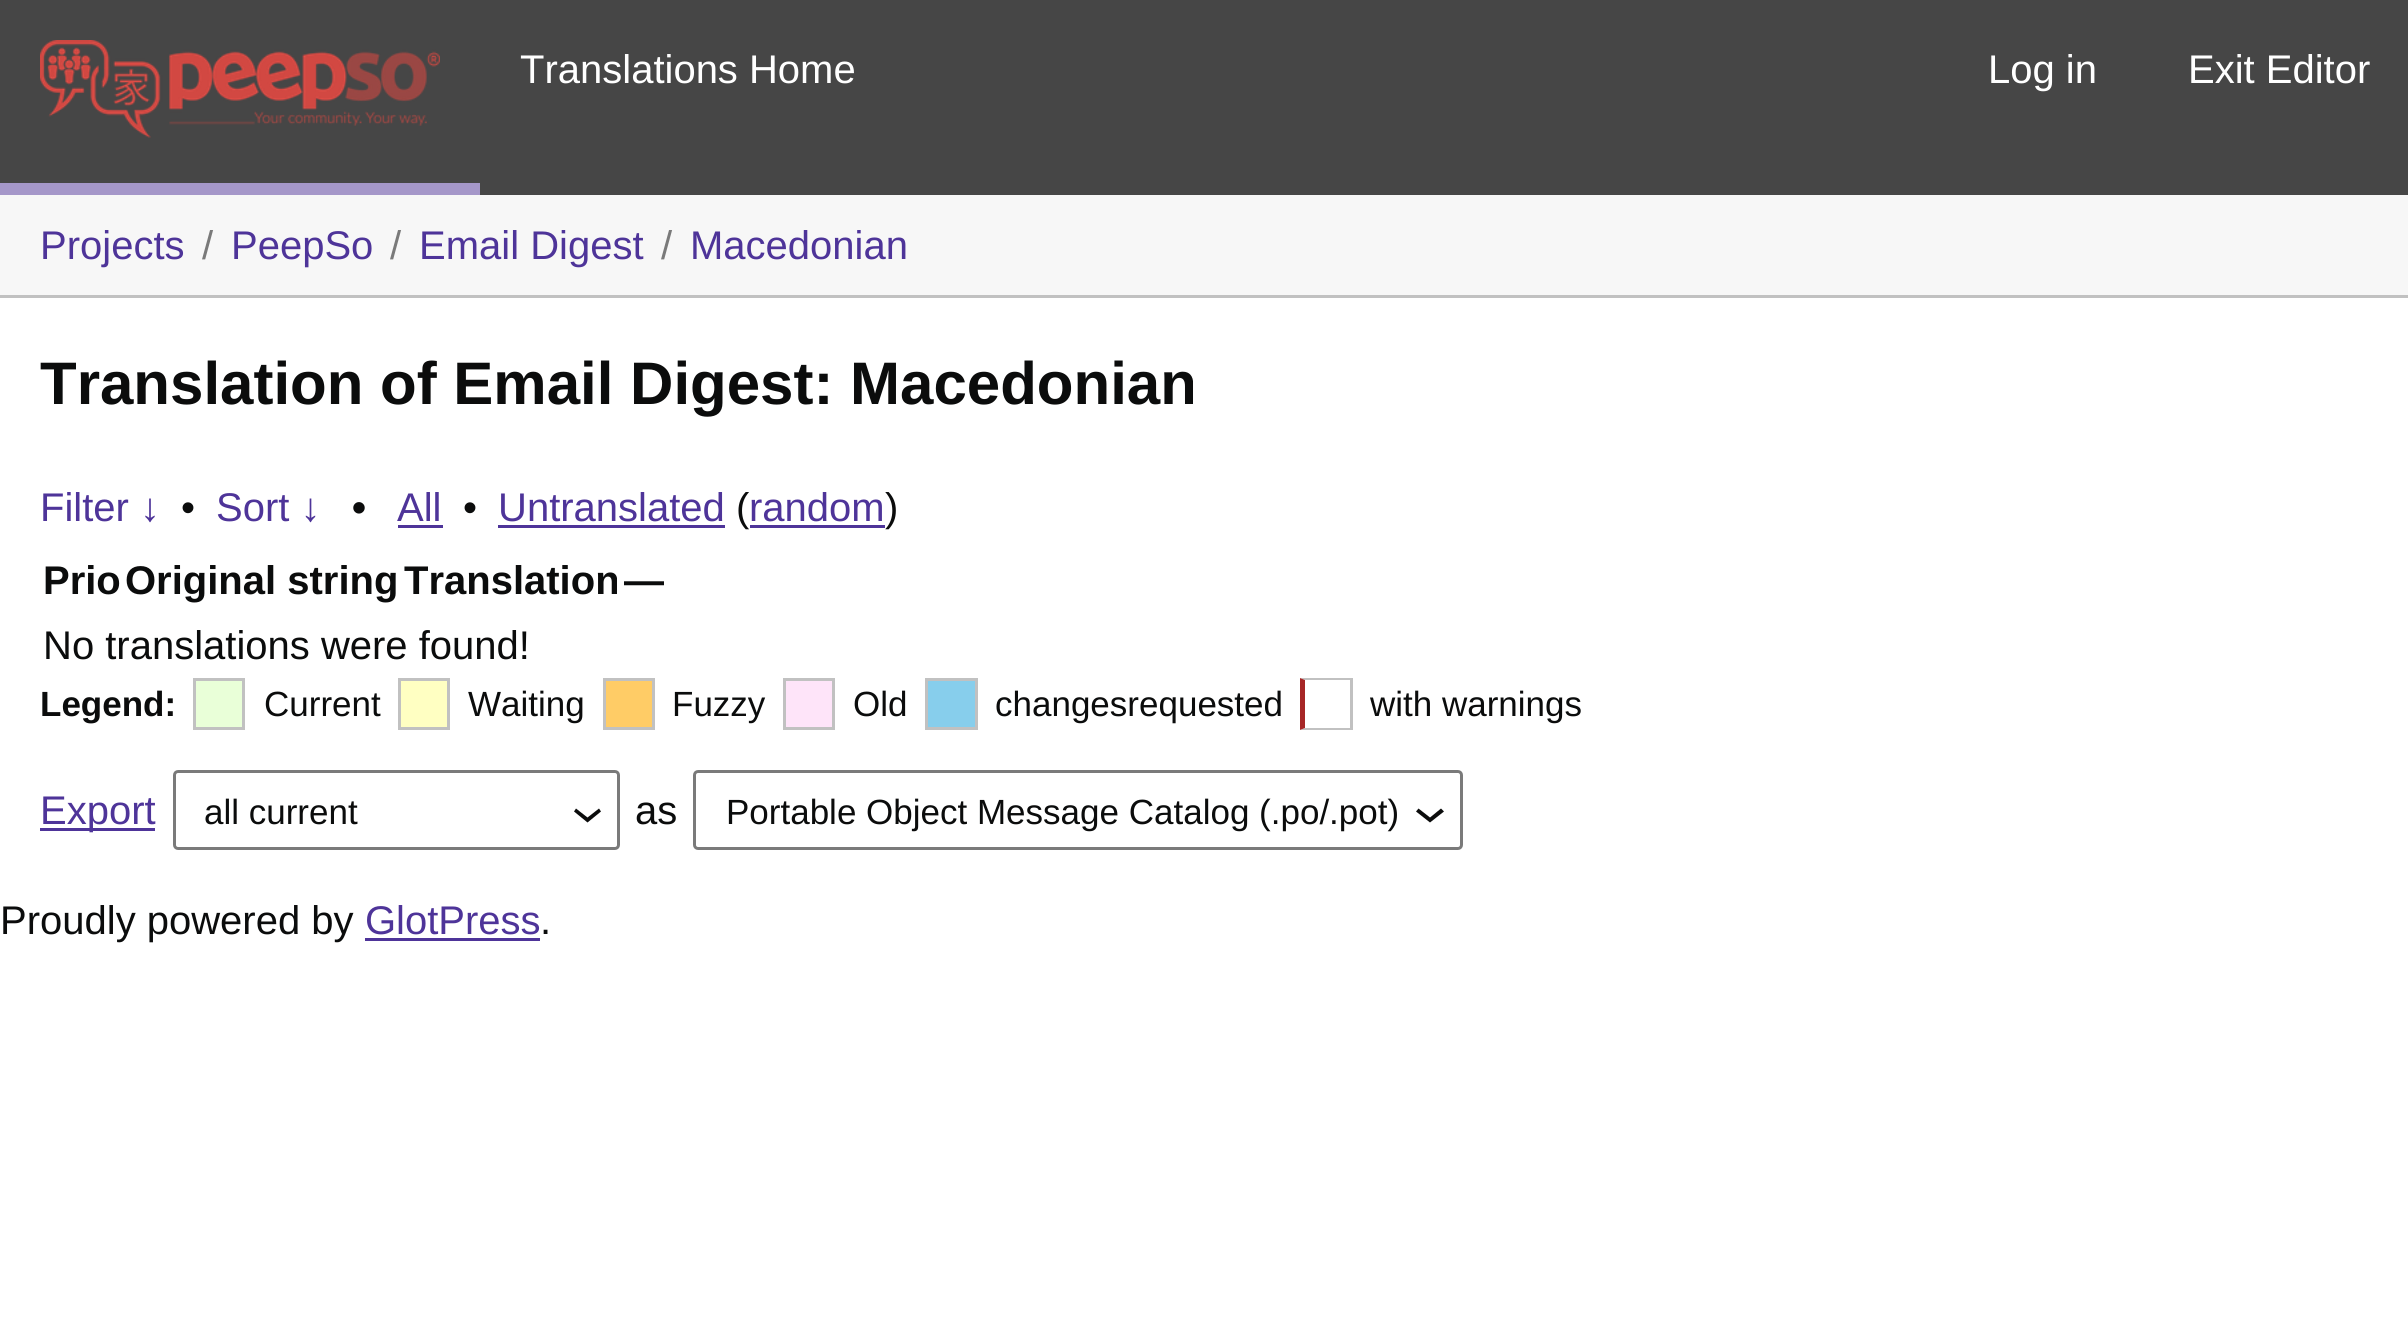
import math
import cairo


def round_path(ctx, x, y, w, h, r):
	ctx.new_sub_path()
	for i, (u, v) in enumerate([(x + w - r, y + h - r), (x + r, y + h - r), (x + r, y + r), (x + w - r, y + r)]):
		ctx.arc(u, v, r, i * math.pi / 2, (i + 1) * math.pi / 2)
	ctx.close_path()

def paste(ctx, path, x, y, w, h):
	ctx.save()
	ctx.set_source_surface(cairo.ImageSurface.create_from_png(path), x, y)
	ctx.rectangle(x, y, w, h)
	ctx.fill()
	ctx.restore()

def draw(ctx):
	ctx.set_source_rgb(1, 1, 1)
	ctx.paint()
	ctx.set_source_rgb(0.275, 0.275, 0.275)
	ctx.rectangle(0, 0, 2408, 195)
	ctx.fill()
	ctx.set_source_rgb(0.647, 0.592, 0.788)
	ctx.rectangle(0, 183, 480, 12)
	ctx.fill()
	paste(ctx, 'media/1.png', 40, 40, 400, 98)
	ctx.select_font_face('Liberation Sans')
	ctx.set_font_size(40)
	ctx.set_source_rgb(1, 1, 1)
	for x, y, s in [
		(520, 83, 'Translations Home'),
		(1988, 83, 'Log in'),
		(2188, 83, 'Exit Editor'),
	]:
		ctx.move_to(x, y)
		ctx.show_text(s)
	ctx.set_source_rgb(0.965, 0.965, 0.965)
	ctx.rectangle(0, 195, 2408, 100)
	ctx.fill()
	ctx.set_source_rgb(0.757, 0.757, 0.757)
	ctx.rectangle(0, 295, 2408, 3)
	ctx.fill()
	ctx.set_source_rgb(0.306, 0.204, 0.6)
	ctx.move_to(40, 259)
	ctx.show_text('Projects')
	ctx.set_source_rgb(0.478, 0.478, 0.478)
	ctx.move_to(202, 259)
	ctx.show_text('/')
	ctx.set_source_rgb(0.306, 0.204, 0.6)
	ctx.move_to(231, 259)
	ctx.show_text('PeepSo')
	ctx.set_source_rgb(0.478, 0.478, 0.478)
	ctx.move_to(390, 259)
	ctx.show_text('/')
	ctx.set_source_rgb(0.306, 0.204, 0.6)
	ctx.move_to(419, 259)
	ctx.show_text('Email Digest')
	ctx.set_source_rgb(0.478, 0.478, 0.478)
	ctx.move_to(661, 259)
	ctx.show_text('/')
	ctx.set_source_rgb(0.306, 0.204, 0.6)
	ctx.move_to(690, 259)
	ctx.show_text('Macedonian')
	ctx.select_font_face('Liberation Sans', cairo.FONT_SLANT_NORMAL, cairo.FONT_WEIGHT_BOLD)
	ctx.set_font_size(60)
	ctx.set_source_rgb(0.043, 0.047, 0.047)
	ctx.move_to(40, 404)
	ctx.show_text('Translation of Email Digest: Macedonian')
	ctx.select_font_face('Liberation Sans')
	ctx.set_font_size(40)
	ctx.set_source_rgb(0.306, 0.204, 0.6)
	ctx.move_to(40, 521)
	ctx.show_text('Filter ↓')
	ctx.set_source_rgb(0.043, 0.047, 0.047)
	ctx.move_to(181, 521)
	ctx.show_text('•')
	ctx.set_source_rgb(0.306, 0.204, 0.6)
	ctx.move_to(216, 521)
	ctx.show_text('Sort ↓')
	ctx.select_font_face('Liberation Sans', cairo.FONT_SLANT_NORMAL, cairo.FONT_WEIGHT_BOLD)
	ctx.set_source_rgb(0.043, 0.047, 0.047)
	ctx.move_to(352, 521)
	ctx.show_text('•')
	ctx.select_font_face('Liberation Sans')
	ctx.set_source_rgb(0.306, 0.204, 0.6)
	ctx.move_to(397, 521)
	ctx.show_text('All')
	ctx.rectangle(398, 525, 45, 3)
	ctx.fill()
	ctx.set_source_rgb(0.043, 0.047, 0.047)
	ctx.move_to(463, 521)
	ctx.show_text('•')
	ctx.set_source_rgb(0.306, 0.204, 0.6)
	ctx.move_to(498, 521)
	ctx.show_text('Untranslated')
	ctx.rectangle(498, 525, 227, 3)
	ctx.fill()
	ctx.set_source_rgb(0.043, 0.047, 0.047)
	ctx.move_to(736, 521)
	ctx.show_text('(')
	ctx.set_source_rgb(0.306, 0.204, 0.6)
	ctx.move_to(749, 521)
	ctx.show_text('random')
	ctx.rectangle(750, 525, 135, 3)
	ctx.fill()
	ctx.set_source_rgb(0.043, 0.047, 0.047)
	ctx.move_to(885, 521)
	ctx.show_text(')')
	ctx.select_font_face('Liberation Sans', cairo.FONT_SLANT_NORMAL, cairo.FONT_WEIGHT_BOLD)
	for x, y, s in [
		(43, 594, 'Prio'),
		(125, 594, 'Original string'),
		(404, 594, 'Translation'),
		(624, 594, '—'),
	]:
		ctx.move_to(x, y)
		ctx.show_text(s)
	ctx.select_font_face('Liberation Sans')
	ctx.move_to(43, 659)
	ctx.show_text('No translations were found!')
	ctx.select_font_face('Liberation Sans', cairo.FONT_SLANT_NORMAL, cairo.FONT_WEIGHT_BOLD)
	ctx.set_font_size(35)
	ctx.move_to(40, 716)
	ctx.show_text('Legend:')
	ctx.set_source_rgb(0.914, 1, 0.847)
	ctx.rectangle(194.5, 679.5, 49, 49)
	ctx.fill_preserve()
	ctx.set_source_rgb(0.757, 0.757, 0.757)
	ctx.set_line_width(3)
	ctx.stroke()
	ctx.select_font_face('Liberation Sans')
	ctx.set_source_rgb(0.043, 0.047, 0.047)
	ctx.move_to(264, 716)
	ctx.show_text('Current')
	ctx.set_source_rgb(1, 1, 0.761)
	ctx.rectangle(399.5, 679.5, 49, 49)
	ctx.fill_preserve()
	ctx.set_source_rgb(0.757, 0.757, 0.757)
	ctx.stroke()
	ctx.set_source_rgb(0.043, 0.047, 0.047)
	ctx.move_to(468, 716)
	ctx.show_text('Waiting')
	ctx.set_source_rgb(1, 0.8, 0.4)
	ctx.rectangle(604.5, 679.5, 49, 49)
	ctx.fill_preserve()
	ctx.set_source_rgb(0.757, 0.757, 0.757)
	ctx.stroke()
	ctx.set_source_rgb(0.043, 0.047, 0.047)
	ctx.move_to(672, 716)
	ctx.show_text('Fuzzy')
	ctx.set_source_rgb(0.996, 0.894, 0.973)
	ctx.rectangle(784.5, 679.5, 49, 49)
	ctx.fill_preserve()
	ctx.set_source_rgb(0.757, 0.757, 0.757)
	ctx.stroke()
	ctx.set_source_rgb(0.043, 0.047, 0.047)
	ctx.move_to(853, 716)
	ctx.show_text('Old')
	ctx.set_source_rgb(0.529, 0.808, 0.922)
	ctx.rectangle(926.5, 679.5, 50, 49)
	ctx.fill_preserve()
	ctx.set_source_rgb(0.757, 0.757, 0.757)
	ctx.stroke()
	ctx.set_source_rgb(0.043, 0.047, 0.047)
	ctx.move_to(995, 716)
	ctx.show_text('changesrequested')
	ctx.set_source_rgb(0.757, 0.757, 0.757)
	ctx.new_path()
	ctx.move_to(1300, 678)
	ctx.line_to(1352, 678)
	ctx.line_to(1350, 680)
	ctx.line_to(1305, 680)
	ctx.close_path()
	ctx.fill()
	ctx.rectangle(1350, 678, 3, 52)
	ctx.fill()
	ctx.new_path()
	ctx.move_to(1352, 730)
	ctx.line_to(1300, 730)
	ctx.line_to(1305, 728)
	ctx.line_to(1350, 728)
	ctx.close_path()
	ctx.fill()
	ctx.set_source_rgb(0.651, 0.149, 0.149)
	ctx.new_path()
	ctx.move_to(1300, 730)
	ctx.line_to(1300, 678)
	ctx.line_to(1305, 680)
	ctx.line_to(1305, 728)
	ctx.close_path()
	ctx.fill()
	ctx.set_source_rgb(0.043, 0.047, 0.047)
	ctx.move_to(1370, 716)
	ctx.show_text('with warnings')
	ctx.set_source_rgb(0.306, 0.204, 0.6)
	ctx.rectangle(40, 828, 115, 3)
	ctx.fill()
	ctx.set_font_size(40)
	ctx.move_to(40, 824)
	ctx.show_text('Export')
	ctx.set_source_rgb(0.043, 0.047, 0.047)
	ctx.new_path()
	ctx.move_to(601, 811.5)
	ctx.line_to(587.5, 822.5)
	ctx.line_to(574, 811.5)
	ctx.line_to(576, 808.5)
	ctx.line_to(587.5, 817.5)
	ctx.line_to(599, 808.5)
	ctx.close_path()
	ctx.fill()
	round_path(ctx, 174.5, 771.5, 444, 77, 3.5)
	ctx.set_source_rgb(0.478, 0.478, 0.478)
	ctx.stroke()
	ctx.set_font_size(35)
	ctx.set_source_rgb(0.043, 0.047, 0.047)
	ctx.move_to(204, 824)
	ctx.show_text('all current')
	ctx.set_font_size(40)
	ctx.move_to(635, 824)
	ctx.show_text('as')
	ctx.new_path()
	ctx.move_to(1444, 811.5)
	ctx.line_to(1430, 822.5)
	ctx.line_to(1416, 811.5)
	ctx.line_to(1418.5, 808.5)
	ctx.line_to(1430, 817.5)
	ctx.line_to(1441, 808.5)
	ctx.close_path()
	ctx.fill()
	round_path(ctx, 694.5, 771.5, 767, 77, 3.5)
	ctx.set_source_rgb(0.478, 0.478, 0.478)
	ctx.stroke()
	ctx.set_font_size(35)
	ctx.set_source_rgb(0.043, 0.047, 0.047)
	ctx.move_to(726, 824)
	ctx.show_text('Portable Object Message Catalog (.po/.pot)')
	ctx.set_font_size(40)
	ctx.move_to(0, 934)
	ctx.show_text('Proudly powered by')
	ctx.set_source_rgb(0.306, 0.204, 0.6)
	ctx.move_to(365, 934)
	ctx.show_text('GlotPress')
	ctx.rectangle(365, 938, 175, 3)
	ctx.fill()
	ctx.set_source_rgb(0.043, 0.047, 0.047)
	ctx.move_to(540, 934)
	ctx.show_text('.')


surface = cairo.ImageSurface(cairo.FORMAT_RGB24, 2408, 1331)
ctx = cairo.Context(surface)
options = cairo.FontOptions()
options.set_hint_metrics(cairo.HINT_METRICS_OFF)
options.set_hint_style(cairo.HINT_STYLE_NONE)
ctx.set_font_options(options)
ctx.set_miter_limit(4)
draw(ctx)
surface.write_to_png('image.png')
